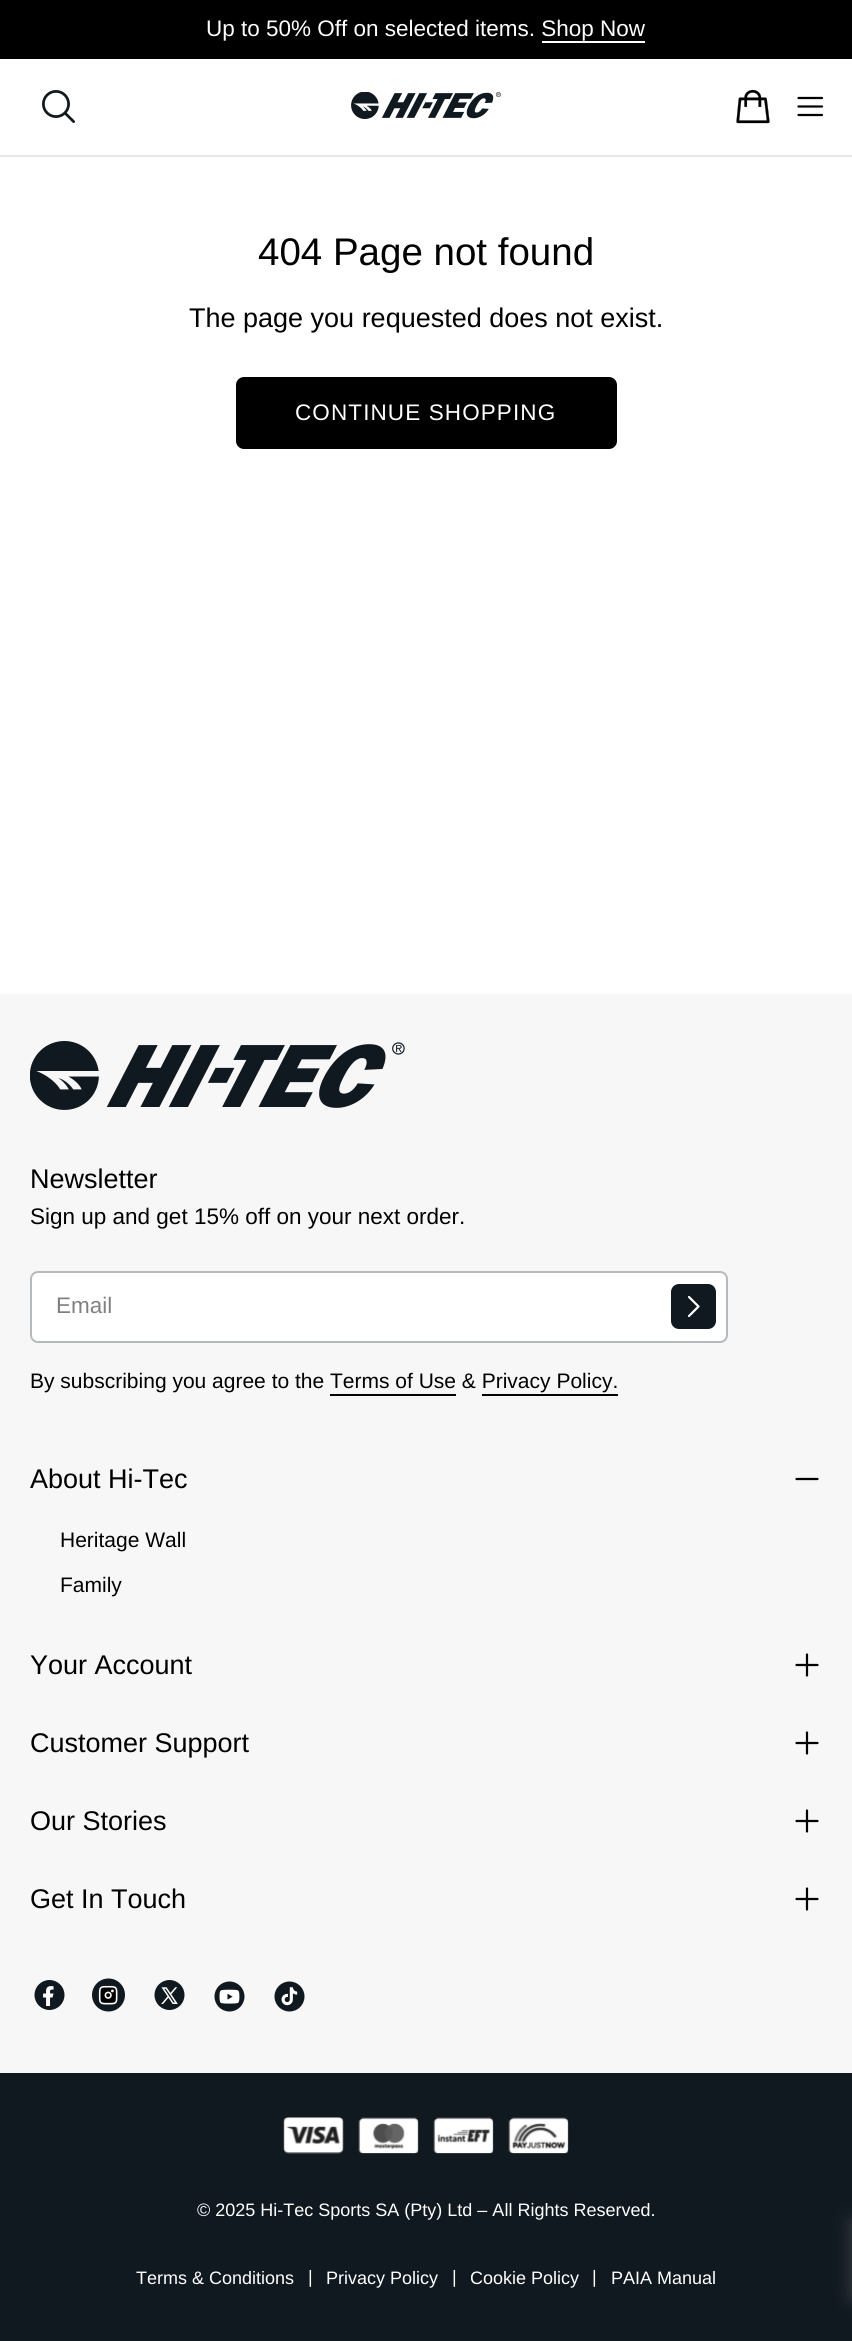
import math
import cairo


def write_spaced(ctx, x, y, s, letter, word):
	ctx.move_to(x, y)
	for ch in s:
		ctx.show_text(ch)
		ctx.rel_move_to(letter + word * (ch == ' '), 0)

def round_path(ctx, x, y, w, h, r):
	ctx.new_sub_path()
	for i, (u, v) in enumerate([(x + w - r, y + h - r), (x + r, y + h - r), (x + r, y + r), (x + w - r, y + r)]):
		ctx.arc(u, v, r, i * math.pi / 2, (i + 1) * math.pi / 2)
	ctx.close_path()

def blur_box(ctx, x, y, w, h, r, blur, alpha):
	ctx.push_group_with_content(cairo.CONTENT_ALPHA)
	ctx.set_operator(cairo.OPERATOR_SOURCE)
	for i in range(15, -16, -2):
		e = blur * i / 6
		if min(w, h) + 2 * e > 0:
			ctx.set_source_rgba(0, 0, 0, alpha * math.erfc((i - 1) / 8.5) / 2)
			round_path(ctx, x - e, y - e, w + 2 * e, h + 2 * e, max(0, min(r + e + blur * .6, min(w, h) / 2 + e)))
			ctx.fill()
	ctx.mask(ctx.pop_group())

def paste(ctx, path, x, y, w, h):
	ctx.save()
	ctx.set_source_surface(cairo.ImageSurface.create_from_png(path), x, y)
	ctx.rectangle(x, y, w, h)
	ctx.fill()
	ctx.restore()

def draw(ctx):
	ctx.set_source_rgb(1, 1, 1)
	ctx.paint()
	ctx.set_source_rgb(0, 0, 0)
	ctx.rectangle(0, 0, 852, 59)
	ctx.fill()
	ctx.select_font_face('Liberation Sans')
	ctx.set_font_size(22.5)
	ctx.set_source_rgb(1, 1, 1)
	ctx.move_to(206, 36)
	ctx.show_text('Up to 50% Off on selected items. Shop Now')
	ctx.rectangle(542, 41, 103, 2)
	ctx.fill()
	ctx.set_source_rgb(0.902, 0.902, 0.902)
	ctx.rectangle(0, 155, 852, 2)
	ctx.fill()
	paste(ctx, 'media/1.png', 42, 90, 33, 33)
	paste(ctx, 'media/2.png', 351, 92, 150, 28)
	paste(ctx, 'media/3.png', 736, 89, 34, 35)
	ctx.new_path()
	ctx.move_to(798.5, 106.5)
	ctx.line_to(822, 106.5)
	ctx.move_to(798.5, 98)
	ctx.line_to(822, 98)
	ctx.move_to(798.5, 115)
	ctx.line_to(822, 115)
	ctx.set_source_rgb(0, 0, 0)
	ctx.set_line_width(2.2)
	ctx.set_line_cap(cairo.LINE_CAP_ROUND)
	ctx.set_line_join(cairo.LINE_JOIN_ROUND)
	ctx.stroke()
	ctx.set_font_size(38.5)
	ctx.move_to(258, 265)
	ctx.show_text('404 Page not found')
	ctx.set_font_size(27)
	ctx.move_to(189, 327)
	ctx.show_text('The page you requested does not exist.')
	round_path(ctx, 236, 377, 381, 72, 8)
	ctx.fill()
	ctx.set_font_size(22.5)
	ctx.set_source_rgb(1, 1, 1)
	write_spaced(ctx, 295, 420, 'CONTINUE SHOPPING', 1.1, 0)
	ctx.set_source_rgb(0.965, 0.965, 0.965)
	ctx.rectangle(0, 994, 852, 1079)
	ctx.fill()
	paste(ctx, 'media/4.png', 30, 1041, 375, 69)
	ctx.set_font_size(27)
	ctx.set_source_rgb(0, 0, 0)
	ctx.move_to(30, 1188)
	ctx.show_text('Newsletter')
	ctx.set_font_size(22.5)
	ctx.move_to(30, 1224)
	ctx.show_text('Sign up and get 15% off on your next order.')
	ctx.set_source_rgb(1, 1, 1)
	round_path(ctx, 30, 1271, 698, 72, 8)
	ctx.fill()
	round_path(ctx, 31, 1272, 696, 70, 7)
	ctx.set_source_rgba(0.063, 0.094, 0.125, 0.3)
	ctx.set_line_width(2)
	ctx.set_line_cap(cairo.LINE_CAP_BUTT)
	ctx.set_line_join(cairo.LINE_JOIN_MITER)
	ctx.stroke()
	ctx.set_source_rgb(0.502, 0.502, 0.502)
	ctx.move_to(56, 1313)
	ctx.show_text('Email')
	ctx.set_source_rgb(0.063, 0.094, 0.125)
	round_path(ctx, 671, 1284, 45, 45, 8)
	ctx.fill()
	ctx.new_path()
	ctx.move_to(689, 1297)
	ctx.line_to(698.5, 1306.5)
	ctx.line_to(689, 1316)
	ctx.set_source_rgb(1, 1, 1)
	ctx.set_line_width(2.2)
	ctx.set_line_cap(cairo.LINE_CAP_ROUND)
	ctx.set_line_join(cairo.LINE_JOIN_ROUND)
	ctx.stroke()
	ctx.set_font_size(21)
	ctx.set_source_rgb(0, 0, 0)
	ctx.move_to(30, 1388)
	ctx.show_text('By subscribing you agree to the Terms of Use & Privacy Policy.')
	ctx.rectangle(330, 1394, 126, 2)
	ctx.fill()
	ctx.rectangle(482, 1394, 136, 2)
	ctx.fill()
	ctx.set_font_size(27)
	ctx.move_to(30, 1488)
	ctx.show_text('About Hi-Tec')
	ctx.new_path()
	ctx.move_to(796.5, 1479)
	ctx.line_to(817.5, 1479)
	ctx.move_to(796.5, 1479)
	ctx.line_to(817.5, 1479)
	ctx.stroke()
	ctx.set_font_size(21)
	ctx.move_to(60, 1547)
	ctx.show_text('Heritage Wall')
	ctx.move_to(60, 1592)
	ctx.show_text('Family')
	ctx.set_font_size(27)
	ctx.move_to(30, 1674)
	ctx.show_text('Your Account')
	ctx.new_path()
	ctx.move_to(796.5, 1665)
	ctx.line_to(817.5, 1665)
	ctx.move_to(807, 1654.5)
	ctx.line_to(807, 1675.5)
	ctx.stroke()
	ctx.move_to(30, 1752)
	ctx.show_text('Customer Support')
	ctx.new_path()
	ctx.move_to(796.5, 1743)
	ctx.line_to(817.5, 1743)
	ctx.move_to(807, 1732.5)
	ctx.line_to(807, 1753.5)
	ctx.stroke()
	ctx.move_to(30, 1830)
	ctx.show_text('Our Stories')
	ctx.new_path()
	ctx.move_to(796.5, 1821)
	ctx.line_to(817.5, 1821)
	ctx.move_to(807, 1810.5)
	ctx.line_to(807, 1831.5)
	ctx.stroke()
	ctx.move_to(30, 1908)
	ctx.show_text('Get In Touch')
	ctx.new_path()
	ctx.move_to(796.5, 1899)
	ctx.line_to(817.5, 1899)
	ctx.move_to(807, 1888.5)
	ctx.line_to(807, 1909.5)
	ctx.stroke()
	paste(ctx, 'media/5.png', 34, 1980, 31, 30)
	paste(ctx, 'media/6.png', 92, 1978, 33, 34)
	paste(ctx, 'media/7.png', 154, 1980, 31, 30)
	paste(ctx, 'media/8.png', 214, 1981, 31, 31)
	paste(ctx, 'media/9.png', 274, 1981, 31, 31)
	ctx.set_source_rgb(0.063, 0.094, 0.125)
	ctx.rectangle(0, 2073, 852, 268)
	ctx.fill()
	paste(ctx, 'media/10.png', 283, 2117, 61, 37)
	paste(ctx, 'media/11.png', 358, 2117, 61, 37)
	paste(ctx, 'media/12.png', 433, 2117, 61, 37)
	paste(ctx, 'media/13.png', 508, 2117, 61, 37)
	ctx.set_font_size(18)
	ctx.set_source_rgb(1, 1, 1)
	for x, y, s in [
		(197, 2216, '© 2025 Hi-Tec Sports SA (Pty) Ltd – All Rights Reserved.'),
		(136, 2284, 'Terms & Conditions'),
		(308, 2283, '|'),
		(326, 2284, 'Privacy Policy'),
		(452, 2283, '|'),
		(470, 2284, 'Cookie Policy'),
		(592, 2283, '|'),
		(611, 2284, 'PAIA Manual'),
	]:
		ctx.move_to(x, y)
		ctx.show_text(s)
	ctx.set_source_rgb(0.459, 0.459, 0.459)
	blur_box(ctx, 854, 2222, 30, 75, 0, 10.5, 0.5)


surface = cairo.ImageSurface(cairo.FORMAT_RGB24, 852, 2341)
ctx = cairo.Context(surface)
options = cairo.FontOptions()
options.set_hint_metrics(cairo.HINT_METRICS_OFF)
options.set_hint_style(cairo.HINT_STYLE_NONE)
ctx.set_font_options(options)
ctx.set_miter_limit(4)
draw(ctx)
surface.write_to_png('image.png')
